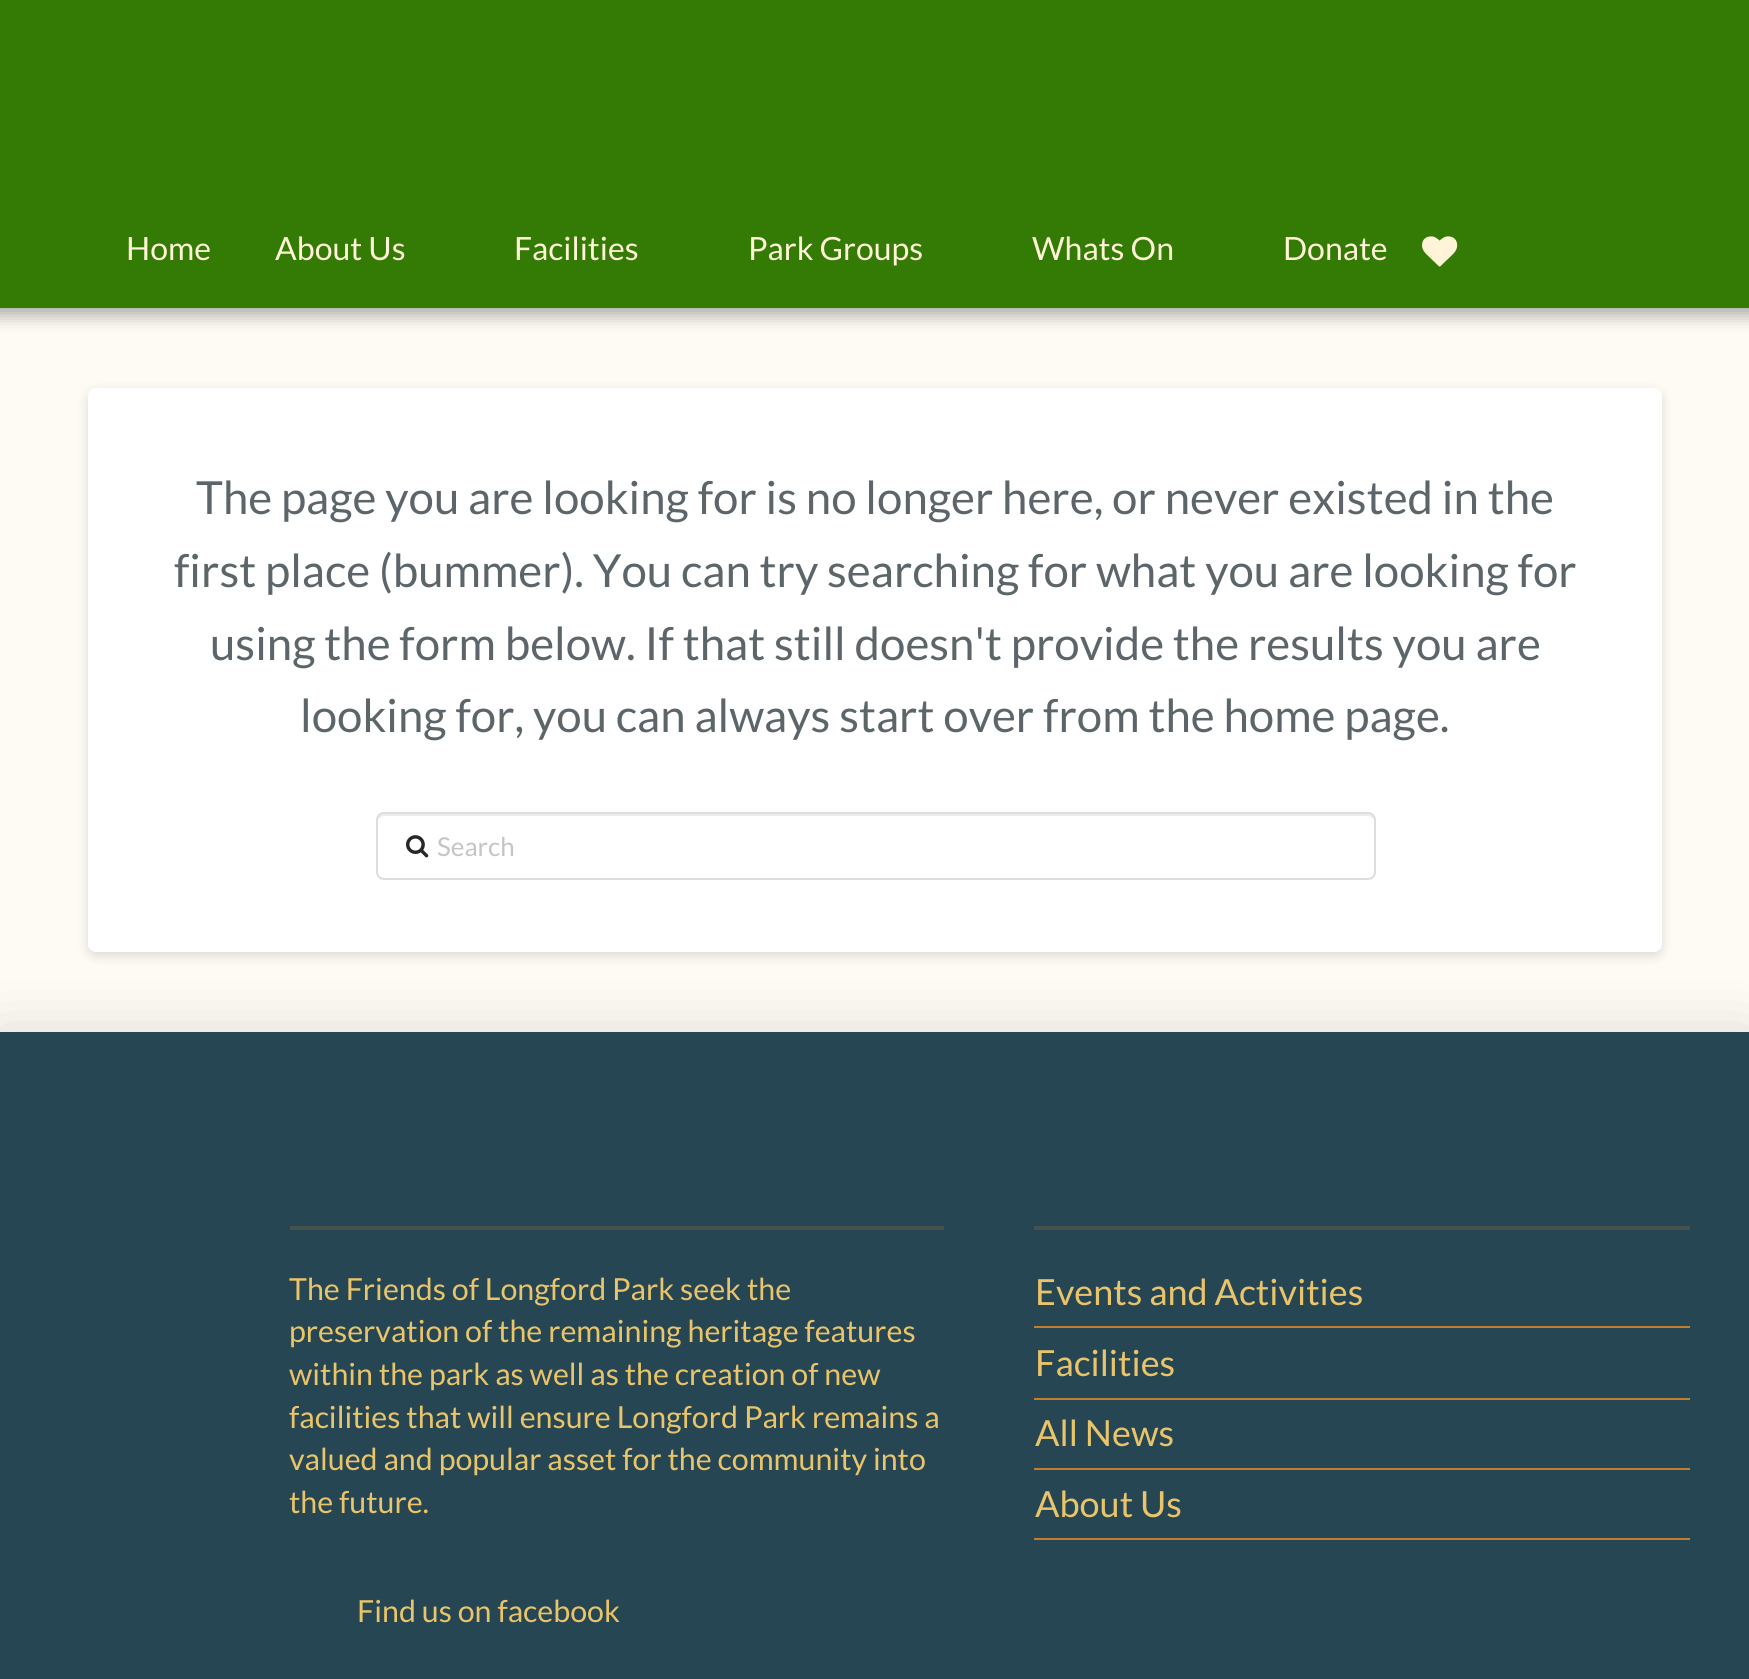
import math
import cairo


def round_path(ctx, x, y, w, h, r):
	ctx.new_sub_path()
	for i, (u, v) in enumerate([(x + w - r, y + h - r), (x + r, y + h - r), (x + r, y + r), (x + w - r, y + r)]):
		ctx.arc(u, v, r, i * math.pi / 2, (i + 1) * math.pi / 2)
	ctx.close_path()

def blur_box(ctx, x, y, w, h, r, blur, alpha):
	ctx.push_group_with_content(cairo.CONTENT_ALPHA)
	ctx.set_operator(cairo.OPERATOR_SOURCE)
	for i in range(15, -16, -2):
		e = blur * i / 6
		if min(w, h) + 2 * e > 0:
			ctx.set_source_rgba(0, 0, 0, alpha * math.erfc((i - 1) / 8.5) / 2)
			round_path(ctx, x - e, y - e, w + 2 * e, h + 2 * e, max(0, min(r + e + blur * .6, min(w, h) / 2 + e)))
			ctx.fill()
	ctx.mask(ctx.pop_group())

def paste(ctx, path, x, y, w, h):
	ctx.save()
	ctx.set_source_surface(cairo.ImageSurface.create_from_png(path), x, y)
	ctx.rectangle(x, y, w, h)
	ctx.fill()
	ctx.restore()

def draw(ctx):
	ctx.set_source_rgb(0.996, 0.984, 0.957)
	ctx.paint()
	ctx.set_source_rgb(0.008, 0.008, 0.008)
	blur_box(ctx, -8, 180, 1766, 136, 0, 8, 0.31)
	ctx.set_source_rgb(0.2, 0.482, 0.016)
	ctx.rectangle(0, 0, 1749, 308)
	ctx.fill()
	ctx.select_font_face('Lato')
	ctx.set_font_size(32)
	ctx.set_source_rgb(1, 0.957, 0.847)
	for x, y, s in [
		(126, 260, 'Home'),
		(275, 260, 'About Us'),
		(514, 260, 'Facilities'),
		(748, 260, 'Park Groups'),
		(1032, 260, 'Whats On'),
		(1283, 260, 'Donate'),
	]:
		ctx.move_to(x, y)
		ctx.show_text(s)
	paste(ctx, 'media/1.png', 1422, 236, 36, 31)
	ctx.set_source_rgb(0, 0, 0)
	blur_box(ctx, 88, 392, 1574, 564, 8, 5.5, 0.13)
	ctx.set_source_rgb(1, 1, 1)
	round_path(ctx, 88, 388, 1574, 564, 8)
	ctx.fill()
	ctx.set_font_size(45.6)
	ctx.set_source_rgb(0.361, 0.4, 0.416)
	for x, y, s in [
		(196, 514, 'The page you are looking for is no longer here, or never existed in the'),
		(174, 587, 'first place (bummer). You can try searching for what you are looking for'),
		(210, 660, 'using the form below. If that still doesn\'t provide the results you are'),
		(300, 732, 'looking for, you can always start over from the home page.'),
	]:
		ctx.move_to(x, y)
		ctx.show_text(s)
	ctx.set_source_rgb(0.925, 0.925, 0.925)
	ctx.new_path()
	ctx.move_to(384, 816)
	ctx.line_to(1368, 816)
	ctx.curve_to(1371, 816, 1374, 819, 1374, 822)
	ctx.curve_to(1374, 818, 1373, 814, 1368, 814)
	ctx.line_to(384, 814)
	ctx.curve_to(379, 814, 378, 818, 378, 822)
	ctx.curve_to(378, 819, 381, 816, 384, 816)
	ctx.close_path()
	ctx.fill()
	round_path(ctx, 377, 813, 998, 66, 7)
	ctx.set_source_rgb(0.867, 0.867, 0.867)
	ctx.stroke()
	paste(ctx, 'media/2.png', 406, 835, 23, 23)
	ctx.set_font_size(26)
	ctx.set_source_rgb(0.773, 0.773, 0.773)
	ctx.move_to(437, 856)
	ctx.show_text('Search')
	ctx.set_source_rgb(0, 0, 0)
	blur_box(ctx, 0, 1036, 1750, 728, 0, 30.5, 0.15)
	ctx.set_source_rgb(0.149, 0.275, 0.325)
	ctx.rectangle(0, 1032, 1749, 647)
	ctx.fill()
	ctx.set_source_rgb(0.271, 0.318, 0.298)
	ctx.rectangle(290, 1226, 654, 4)
	ctx.fill()
	ctx.set_font_size(30.4)
	ctx.set_source_rgb(0.914, 0.769, 0.416)
	for x, y, s in [
		(289, 1300, 'The Friends of Longford Park seek the'),
		(289, 1342, 'preservation of the remaining heritage features'),
		(289, 1385, 'within the park as well as the creation of new'),
		(289, 1428, 'facilities that will ensure Longford Park remains a'),
		(289, 1470, 'valued and popular asset for the community into'),
		(289, 1513, 'the future.'),
		(357, 1622, 'Find us on facebook'),
	]:
		ctx.move_to(x, y)
		ctx.show_text(s)
	ctx.set_source_rgb(0.271, 0.318, 0.298)
	ctx.rectangle(1034, 1226, 656, 4)
	ctx.fill()
	ctx.set_source_rgb(0.749, 0.498, 0.188)
	ctx.rectangle(1034, 1326, 656, 2)
	ctx.fill()
	ctx.set_font_size(36)
	ctx.set_source_rgb(0.914, 0.769, 0.416)
	ctx.move_to(1035, 1305)
	ctx.show_text('Events and Activities')
	ctx.set_source_rgb(0.749, 0.498, 0.188)
	ctx.rectangle(1034, 1398, 656, 2)
	ctx.fill()
	ctx.set_source_rgb(0.914, 0.769, 0.416)
	ctx.move_to(1035, 1376)
	ctx.show_text('Facilities')
	ctx.set_source_rgb(0.749, 0.498, 0.188)
	ctx.rectangle(1034, 1468, 656, 2)
	ctx.fill()
	ctx.set_source_rgb(0.914, 0.769, 0.416)
	ctx.move_to(1035, 1446)
	ctx.show_text('All News')
	ctx.set_source_rgb(0.749, 0.498, 0.188)
	ctx.rectangle(1034, 1538, 656, 2)
	ctx.fill()
	ctx.set_source_rgb(0.914, 0.769, 0.416)
	ctx.move_to(1035, 1517)
	ctx.show_text('About Us')


surface = cairo.ImageSurface(cairo.FORMAT_RGB24, 1749, 1679)
ctx = cairo.Context(surface)
options = cairo.FontOptions()
options.set_hint_metrics(cairo.HINT_METRICS_OFF)
options.set_hint_style(cairo.HINT_STYLE_NONE)
ctx.set_font_options(options)
ctx.set_miter_limit(4)
draw(ctx)
surface.write_to_png('image.png')
